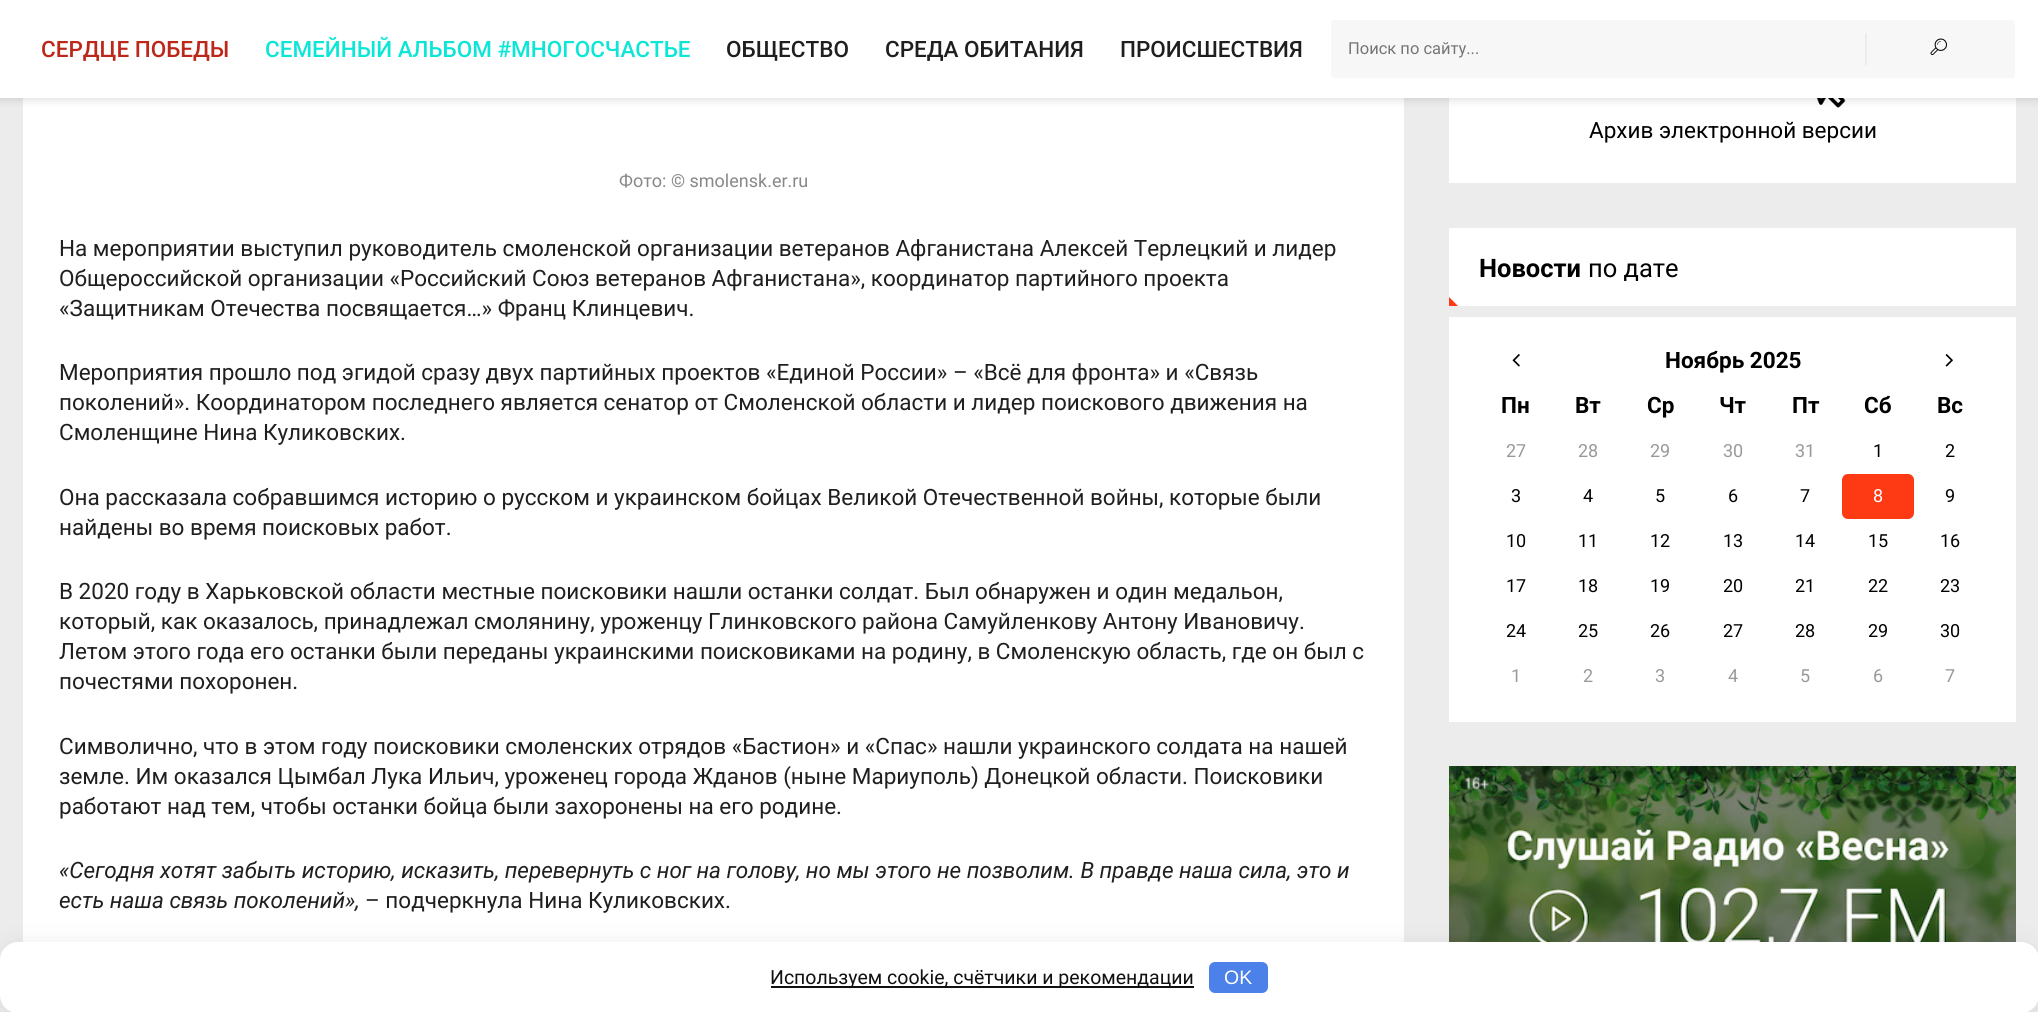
import math
import cairo


def round_path(ctx, x, y, w, h, r):
	ctx.new_sub_path()
	for i, (u, v) in enumerate([(x + w - r, y + h - r), (x + r, y + h - r), (x + r, y + r), (x + w - r, y + r)]):
		ctx.arc(u, v, r, i * math.pi / 2, (i + 1) * math.pi / 2)
	ctx.close_path()

def blur_box(ctx, x, y, w, h, r, blur, alpha):
	ctx.push_group_with_content(cairo.CONTENT_ALPHA)
	ctx.set_operator(cairo.OPERATOR_SOURCE)
	for i in range(15, -16, -2):
		e = blur * i / 6
		if min(w, h) + 2 * e > 0:
			ctx.set_source_rgba(0, 0, 0, alpha * math.erfc((i - 1) / 8.5) / 2)
			round_path(ctx, x - e, y - e, w + 2 * e, h + 2 * e, max(0, min(r + e + blur * .6, min(w, h) / 2 + e)))
			ctx.fill()
	ctx.mask(ctx.pop_group())

def paste(ctx, path, x, y, w, h):
	ctx.save()
	ctx.set_source_surface(cairo.ImageSurface.create_from_png(path), x, y)
	ctx.rectangle(x, y, w, h)
	ctx.fill()
	ctx.restore()

def draw(ctx):
	ctx.set_source_rgb(0.922, 0.922, 0.922)
	ctx.paint()
	ctx.set_source_rgb(1, 1, 1)
	ctx.rectangle(23, 98, 1381, 844)
	ctx.fill()
	ctx.rectangle(1449, 98, 567, 85)
	ctx.fill()
	paste(ctx, 'media/2.png', 1816, 98, 30, 10)
	ctx.set_source_rgb(0, 0, 0)
	blur_box(ctx, 0, 2, 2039, 97, 0, 5, 0.15)
	ctx.set_source_rgb(1, 1, 1)
	ctx.rectangle(0, 0, 2038, 98)
	ctx.fill()
	ctx.select_font_face('Roboto Medium')
	ctx.set_font_size(22.5)
	ctx.set_source_rgb(0.741, 0.153, 0.102)
	ctx.move_to(41, 57)
	ctx.show_text('СЕРДЦЕ ПОБЕДЫ')
	ctx.set_source_rgb(0.047, 0.902, 0.843)
	ctx.move_to(265, 57)
	ctx.show_text('СЕМЕЙНЫЙ АЛЬБОМ #МНОГОСЧАСТЬЕ')
	ctx.set_source_rgb(0.122, 0.122, 0.122)
	for x, y, s in [
		(726, 57, 'ОБЩЕСТВО'),
		(885, 57, 'СРЕДА ОБИТАНИЯ'),
		(1120, 57, 'ПРОИСШЕСТВИЯ'),
	]:
		ctx.move_to(x, y)
		ctx.show_text(s)
	ctx.set_source_rgb(0.965, 0.965, 0.965)
	round_path(ctx, 1331, 20, 684, 58, 3)
	ctx.fill()
	ctx.select_font_face('Roboto')
	ctx.set_font_size(16.5)
	ctx.set_source_rgb(0.459, 0.459, 0.459)
	ctx.move_to(1348, 54)
	ctx.show_text('Поиск по сайту...')
	ctx.set_source_rgb(0.922, 0.922, 0.922)
	ctx.rectangle(1865, 33, 2, 32)
	ctx.fill()
	paste(ctx, 'media/1.png', 1930, 38, 17, 17)
	ctx.set_font_size(18)
	ctx.set_source_rgb(0.533, 0.533, 0.533)
	ctx.move_to(619, 187)
	ctx.show_text('Фото: © smolensk.er.ru')
	ctx.set_font_size(22.5)
	ctx.set_source_rgb(0.122, 0.122, 0.122)
	for x, y, s in [
		(59, 256, 'На мероприятии выступил руководитель смоленской организации ветеранов Афганистана Алексей Терлецкий и лидер'),
		(59, 286, 'Общероссийской организации «Российский Союз ветеранов Афганистана», координатор партийного проекта'),
		(59, 316, '«Защитникам Отечества посвящается…» Франц Клинцевич.'),
		(59, 380, 'Мероприятия прошло под эгидой сразу двух партийных проектов «Единой России» – «Всё для фронта» и «Связь'),
		(59, 410, 'поколений». Координатором последнего является сенатор от Смоленской области и лидер поискового движения на'),
		(59, 440, 'Смоленщине Нина Куликовских.'),
		(59, 505, 'Она рассказала собравшимся историю о русском и украинском бойцах Великой Отечественной войны, которые были'),
		(59, 535, 'найдены во время поисковых работ.'),
		(59, 599, 'В 2020 году в Харьковской области местные поисковики нашли останки солдат. Был обнаружен и один медальон,'),
		(59, 629, 'который, как оказалось, принадлежал смолянину, уроженцу Глинковского района Самуйленкову Антону Ивановичу.'),
		(59, 659, 'Летом этого года его останки были переданы украинскими поисковиками на родину, в Смоленскую область, где он был с'),
		(59, 689, 'почестями похоронен.'),
		(59, 754, 'Символично, что в этом году поисковики смоленских отрядов «Бастион» и «Спас» нашли украинского солдата на нашей'),
		(59, 784, 'земле. Им оказался Цымбал Лука Ильич, уроженец города Жданов (ныне Мариуполь) Донецкой области. Поисковики'),
		(59, 814, 'работают над тем, чтобы останки бойца были захоронены на его родине.'),
	]:
		ctx.move_to(x, y)
		ctx.show_text(s)
	ctx.select_font_face('Roboto', cairo.FONT_SLANT_ITALIC)
	ctx.move_to(59, 878)
	ctx.show_text('«Сегодня хотят забыть историю, исказить, перевернуть с ног на голову, но мы этого не позволим. В правде наша сила, это и')
	ctx.move_to(59, 908)
	ctx.show_text('есть наша связь поколений»,')
	ctx.select_font_face('Roboto')
	ctx.move_to(365, 908)
	ctx.show_text('– подчеркнула Нина Куликовских.')
	ctx.set_source_rgb(0, 0, 0)
	ctx.move_to(1589, 138)
	ctx.show_text('Архив электронной версии')
	ctx.set_source_rgb(1, 1, 1)
	ctx.rectangle(1449, 228, 567, 78)
	ctx.fill()
	ctx.select_font_face('Roboto', cairo.FONT_SLANT_NORMAL, cairo.FONT_WEIGHT_BOLD)
	ctx.set_font_size(25.5)
	ctx.set_source_rgb(0, 0, 0)
	ctx.move_to(1479, 277)
	ctx.show_text('Новости')
	ctx.select_font_face('Roboto')
	ctx.move_to(1588, 277)
	ctx.show_text('по дате')
	ctx.set_source_rgb(0.992, 0.227, 0.075)
	ctx.new_path()
	ctx.move_to(1458, 306)
	ctx.line_to(1449, 306)
	ctx.line_to(1449, 297)
	ctx.close_path()
	ctx.fill()
	ctx.set_source_rgb(1, 1, 1)
	ctx.rectangle(1449, 317, 567, 405)
	ctx.fill()
	paste(ctx, 'media/3.png', 1512, 354, 8, 13)
	ctx.select_font_face('Roboto', cairo.FONT_SLANT_NORMAL, cairo.FONT_WEIGHT_BOLD)
	ctx.set_font_size(22.5)
	ctx.set_source_rgb(0, 0, 0)
	ctx.move_to(1665, 368)
	ctx.show_text('Ноябрь 2025')
	paste(ctx, 'media/4.png', 1945, 354, 8, 13)
	for x, y, s in [
		(1501, 413, 'Пн'),
		(1575, 413, 'Вт'),
		(1647, 413, 'Ср'),
		(1719, 413, 'Чт'),
		(1792, 413, 'Пт'),
		(1864, 413, 'Сб'),
		(1937, 413, 'Вс'),
	]:
		ctx.move_to(x, y)
		ctx.show_text(s)
	ctx.select_font_face('Roboto')
	ctx.set_font_size(18)
	ctx.set_source_rgb(0.6, 0.6, 0.6)
	for x, y, s in [
		(1506, 457, '27'),
		(1578, 457, '28'),
		(1650, 457, '29'),
		(1723, 457, '30'),
		(1795, 457, '31'),
	]:
		ctx.move_to(x, y)
		ctx.show_text(s)
	ctx.set_source_rgb(0, 0, 0)
	for x, y, s in [
		(1873, 457, '1'),
		(1945, 457, '2'),
		(1511, 502, '3'),
		(1583, 502, '4'),
		(1655, 502, '5'),
		(1728, 502, '6'),
		(1800, 502, '7'),
	]:
		ctx.move_to(x, y)
		ctx.show_text(s)
	ctx.set_source_rgb(0.992, 0.227, 0.075)
	round_path(ctx, 1842, 474, 72, 45, 6)
	ctx.fill()
	ctx.set_source_rgb(1, 1, 1)
	ctx.move_to(1873, 502)
	ctx.show_text('8')
	ctx.set_source_rgb(0, 0, 0)
	for x, y, s in [
		(1945, 502, '9'),
		(1506, 547, '10'),
		(1578, 547, '11'),
		(1650, 547, '12'),
		(1723, 547, '13'),
		(1795, 547, '14'),
		(1868, 547, '15'),
		(1940, 547, '16'),
		(1506, 592, '17'),
		(1578, 592, '18'),
		(1650, 592, '19'),
		(1723, 592, '20'),
		(1795, 592, '21'),
		(1868, 592, '22'),
		(1940, 592, '23'),
		(1506, 637, '24'),
		(1578, 637, '25'),
		(1650, 637, '26'),
		(1723, 637, '27'),
		(1795, 637, '28'),
		(1868, 637, '29'),
		(1940, 637, '30'),
	]:
		ctx.move_to(x, y)
		ctx.show_text(s)
	ctx.set_source_rgb(0.6, 0.6, 0.6)
	for x, y, s in [
		(1511, 682, '1'),
		(1583, 682, '2'),
		(1655, 682, '3'),
		(1728, 682, '4'),
		(1800, 682, '5'),
		(1873, 682, '6'),
		(1945, 682, '7'),
	]:
		ctx.move_to(x, y)
		ctx.show_text(s)
	paste(ctx, 'media/5.png', 1449, 766, 567, 176)
	ctx.set_source_rgb(0.161, 0.173, 0.22)
	blur_box(ctx, 8, 954, 2023, 56, 11, 15, 0.2)
	ctx.set_source_rgb(1, 1, 1)
	round_path(ctx, 0, 942, 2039, 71, 18)
	ctx.fill()
	ctx.set_source_rgb(0.067, 0.067, 0.067)
	ctx.rectangle(771, 986, 423, 2)
	ctx.fill()
	ctx.set_font_size(19.5)
	ctx.move_to(770, 984)
	ctx.show_text('Используем cookie, счётчики и рекомендации')
	ctx.set_source_rgb(0.294, 0.506, 0.91)
	round_path(ctx, 1209, 962, 59, 31, 6)
	ctx.fill()
	ctx.select_font_face('Liberation Sans')
	ctx.set_source_rgb(1, 1, 1)
	ctx.move_to(1224, 984)
	ctx.show_text('OK')


surface = cairo.ImageSurface(cairo.FORMAT_RGB24, 2038, 1012)
ctx = cairo.Context(surface)
options = cairo.FontOptions()
options.set_hint_metrics(cairo.HINT_METRICS_OFF)
options.set_hint_style(cairo.HINT_STYLE_NONE)
ctx.set_font_options(options)
ctx.set_miter_limit(4)
draw(ctx)
surface.write_to_png('image.png')
